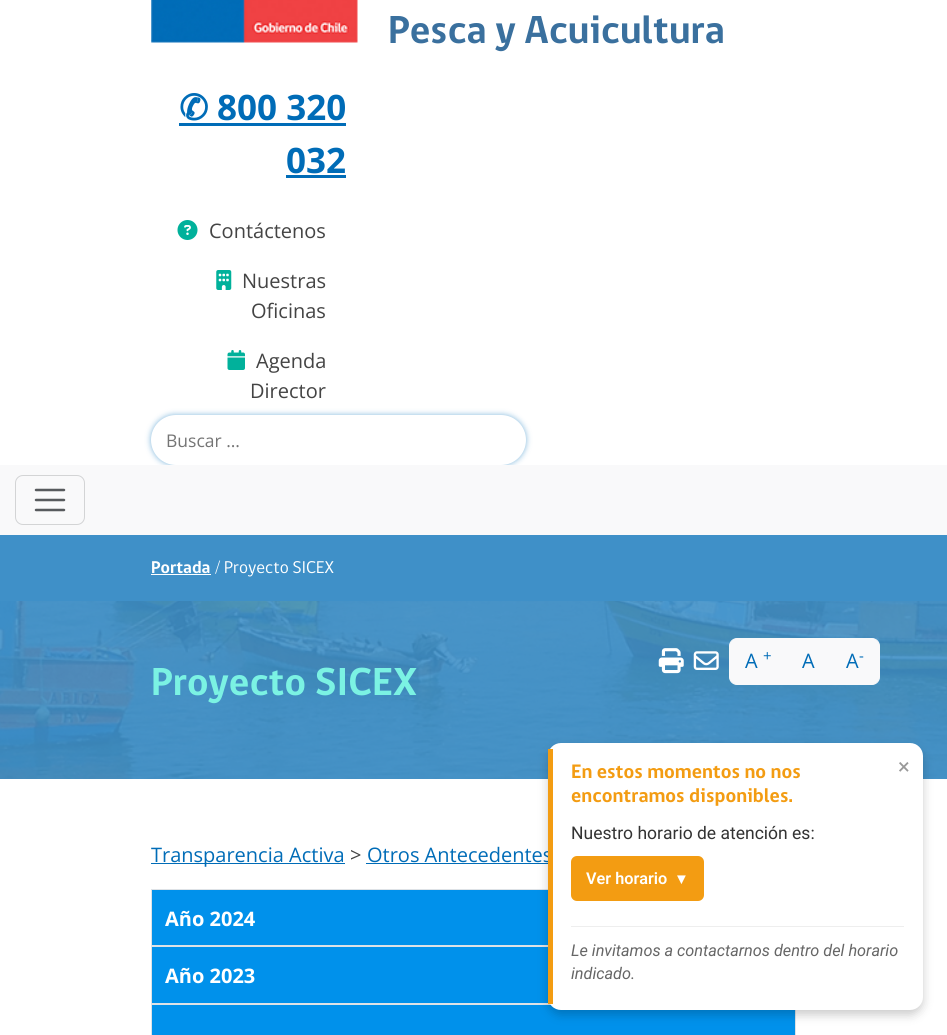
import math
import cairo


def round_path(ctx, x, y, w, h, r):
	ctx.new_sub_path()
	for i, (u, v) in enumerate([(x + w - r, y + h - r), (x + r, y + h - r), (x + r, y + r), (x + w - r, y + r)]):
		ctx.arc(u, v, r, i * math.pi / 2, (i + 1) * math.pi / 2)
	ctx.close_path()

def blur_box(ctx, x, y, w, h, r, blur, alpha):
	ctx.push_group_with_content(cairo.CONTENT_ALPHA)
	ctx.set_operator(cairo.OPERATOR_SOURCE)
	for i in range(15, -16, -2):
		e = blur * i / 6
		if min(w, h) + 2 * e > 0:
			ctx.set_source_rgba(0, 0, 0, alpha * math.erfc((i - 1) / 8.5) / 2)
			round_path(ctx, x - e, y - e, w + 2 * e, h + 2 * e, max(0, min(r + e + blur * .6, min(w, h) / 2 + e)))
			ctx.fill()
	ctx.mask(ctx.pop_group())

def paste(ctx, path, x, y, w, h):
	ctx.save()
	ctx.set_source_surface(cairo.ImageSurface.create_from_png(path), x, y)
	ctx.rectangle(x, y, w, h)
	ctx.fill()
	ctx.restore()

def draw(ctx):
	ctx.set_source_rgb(1, 1, 1)
	ctx.paint()
	paste(ctx, 'media/1.png', 151, 0, 207, 43)
	ctx.select_font_face('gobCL', cairo.FONT_SLANT_NORMAL, cairo.FONT_WEIGHT_BOLD)
	ctx.set_font_size(40)
	ctx.set_source_rgb(0.227, 0.439, 0.62)
	ctx.move_to(388, 43)
	ctx.show_text('Pesca y Acuicultura')
	ctx.select_font_face('DejaVu Sans', cairo.FONT_SLANT_NORMAL, cairo.FONT_WEIGHT_BOLD)
	ctx.set_font_size(35)
	ctx.set_source_rgb(0, 0.424, 0.718)
	ctx.move_to(179, 120)
	ctx.show_text('✆')
	ctx.rectangle(179, 123, 167, 3)
	ctx.fill()
	ctx.select_font_face('Open Sans', cairo.FONT_SLANT_NORMAL, cairo.FONT_WEIGHT_BOLD)
	ctx.move_to(217, 120)
	ctx.show_text('800 320')
	ctx.move_to(286, 173)
	ctx.show_text('032')
	ctx.rectangle(286, 175, 60, 3)
	ctx.fill()
	paste(ctx, 'media/2.png', 177, 220, 21, 20)
	ctx.select_font_face('Open Sans')
	ctx.set_font_size(20)
	ctx.set_source_rgb(0.267, 0.267, 0.267)
	ctx.move_to(209, 238)
	ctx.show_text('Contáctenos')
	paste(ctx, 'media/3.png', 216, 270, 16, 20)
	ctx.move_to(242, 288)
	ctx.show_text('Nuestras')
	ctx.move_to(251, 318)
	ctx.show_text('Oficinas')
	paste(ctx, 'media/4.png', 227, 350, 18, 20)
	ctx.move_to(256, 368)
	ctx.show_text('Agenda')
	ctx.move_to(250, 398)
	ctx.show_text('Director')
	ctx.set_source_rgb(0.004, 0.431, 0.725)
	blur_box(ctx, 151, 415, 375, 50, 25, 3, 0.5)
	ctx.set_source_rgb(1, 1, 1)
	round_path(ctx, 151, 415, 375, 50, 25)
	ctx.fill()
	ctx.set_font_size(17.5)
	ctx.set_source_rgb(0.459, 0.459, 0.459)
	ctx.move_to(166, 447)
	ctx.show_text('Buscar …')
	ctx.set_source_rgb(0.973, 0.976, 0.98)
	ctx.rectangle(0, 465, 947, 70)
	ctx.fill()
	round_path(ctx, 15.5, 475.5, 69, 49, 7.5)
	ctx.set_source_rgb(0.827, 0.831, 0.835)
	ctx.set_line_width(1)
	ctx.stroke()
	ctx.new_path()
	ctx.move_to(36, 490)
	ctx.line_to(64, 490)
	ctx.move_to(36, 500)
	ctx.line_to(64, 500)
	ctx.move_to(36, 510)
	ctx.line_to(64, 510)
	ctx.set_source_rgb(0.341, 0.353, 0.365)
	ctx.set_line_width(2.5)
	ctx.set_line_cap(cairo.LINE_CAP_ROUND)
	ctx.stroke()
	ctx.set_source_rgb(0.247, 0.565, 0.784)
	ctx.rectangle(0, 535, 947, 66)
	ctx.fill()
	ctx.select_font_face('gobCL', cairo.FONT_SLANT_NORMAL, cairo.FONT_WEIGHT_BOLD)
	ctx.set_source_rgb(1, 1, 1)
	ctx.move_to(151, 573)
	ctx.show_text('Portada')
	ctx.rectangle(151, 574, 60, 1)
	ctx.fill()
	ctx.select_font_face('gobCL')
	ctx.move_to(215, 573)
	ctx.show_text('/ Proyecto SICEX')
	paste(ctx, 'media/5.png', 0, 601, 947, 178)
	paste(ctx, 'media/6.png', 658, 648, 26, 26)
	paste(ctx, 'media/7.png', 693, 651, 26, 19)
	ctx.set_source_rgb(0.973, 0.976, 0.98)
	ctx.new_path()
	ctx.move_to(737, 638.5)
	ctx.line_to(787.5, 638.5)
	ctx.line_to(787.5, 684.5)
	ctx.line_to(737, 684.5)
	ctx.curve_to(733, 684.5, 729.5, 681, 729.5, 677)
	ctx.line_to(729.5, 646)
	ctx.curve_to(729.5, 642, 733, 638.5, 737, 638.5)
	ctx.close_path()
	ctx.fill_preserve()
	ctx.set_line_width(1)
	ctx.set_line_cap(cairo.LINE_CAP_BUTT)
	ctx.stroke()
	ctx.select_font_face('Open Sans')
	ctx.set_font_size(20)
	ctx.set_source_rgb(0, 0.424, 0.718)
	ctx.move_to(745, 668)
	ctx.show_text('A')
	ctx.set_font_size(15)
	ctx.move_to(763, 661)
	ctx.show_text('+')
	ctx.set_source_rgb(0.973, 0.976, 0.98)
	ctx.rectangle(788, 638, 42, 47)
	ctx.fill()
	ctx.set_font_size(20)
	ctx.set_source_rgb(0, 0.424, 0.718)
	ctx.move_to(802, 668)
	ctx.show_text('A')
	ctx.set_source_rgb(0.973, 0.976, 0.98)
	ctx.new_path()
	ctx.move_to(830.5, 638.5)
	ctx.line_to(872, 638.5)
	ctx.curve_to(876, 638.5, 879.5, 642, 879.5, 646)
	ctx.line_to(879.5, 677)
	ctx.curve_to(879.5, 681, 876, 684.5, 872, 684.5)
	ctx.line_to(830.5, 684.5)
	ctx.close_path()
	ctx.fill_preserve()
	ctx.stroke()
	ctx.set_source_rgb(0, 0.424, 0.718)
	ctx.move_to(846, 668)
	ctx.show_text('A')
	ctx.set_font_size(15)
	ctx.move_to(859, 661)
	ctx.show_text('-')
	ctx.select_font_face('gobCL', cairo.FONT_SLANT_NORMAL, cairo.FONT_WEIGHT_BOLD)
	ctx.set_font_size(40)
	ctx.set_source_rgb(0.482, 0.949, 0.89)
	ctx.move_to(151, 695)
	ctx.show_text('Proyecto SICEX')
	ctx.set_source_rgb(0, 0.424, 0.718)
	ctx.rectangle(151, 863, 194, 1)
	ctx.fill()
	ctx.select_font_face('Open Sans')
	ctx.set_font_size(20)
	ctx.move_to(151, 862)
	ctx.show_text('Transparencia Activa')
	ctx.set_source_rgb(0.267, 0.267, 0.267)
	ctx.move_to(350, 862)
	ctx.show_text('>')
	ctx.set_source_rgb(0, 0.424, 0.718)
	ctx.move_to(367, 862)
	ctx.show_text('Otros Antecedentes')
	ctx.rectangle(366, 863, 187, 1)
	ctx.fill()
	ctx.set_source_rgb(0, 0.569, 0.918)
	ctx.rectangle(152, 890, 396, 55)
	ctx.fill()
	ctx.rectangle(151.5, 889.5, 644, 56)
	ctx.set_source_rgb(0.871, 0.886, 0.902)
	ctx.stroke()
	ctx.select_font_face('Open Sans', cairo.FONT_SLANT_NORMAL, cairo.FONT_WEIGHT_BOLD)
	ctx.set_source_rgb(1, 1, 1)
	ctx.move_to(165, 926)
	ctx.show_text('Año 2024')
	ctx.set_source_rgb(0, 0.569, 0.918)
	ctx.rectangle(152, 947, 396, 56)
	ctx.fill()
	ctx.rectangle(151.5, 946.5, 644, 57)
	ctx.set_source_rgb(0.871, 0.886, 0.902)
	ctx.stroke()
	ctx.set_source_rgb(1, 1, 1)
	ctx.move_to(165, 983)
	ctx.show_text('Año 2023')
	ctx.set_source_rgb(0, 0.569, 0.918)
	ctx.rectangle(151.5, 1004.5, 644, 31)
	ctx.fill_preserve()
	ctx.set_source_rgb(0.871, 0.886, 0.902)
	ctx.stroke()
	ctx.set_source_rgb(0, 0, 0)
	blur_box(ctx, 548, 748, 375, 267, 13, 5, 0.2)
	ctx.set_source_rgb(1, 1, 1)
	round_path(ctx, 548, 743, 375, 267, 13)
	ctx.fill()
	ctx.set_source_rgb(0.953, 0.612, 0.071)
	ctx.rectangle(548, 749, 5, 255)
	ctx.fill()
	ctx.select_font_face('gobCL', cairo.FONT_SLANT_NORMAL, cairo.FONT_WEIGHT_BOLD)
	ctx.move_to(571, 778)
	ctx.show_text('En estos momentos no nos')
	ctx.move_to(571, 802)
	ctx.show_text('encontramos disponibles.')
	ctx.select_font_face('Roboto')
	ctx.set_font_size(22)
	ctx.set_source_rgb(0.6, 0.6, 0.6)
	ctx.move_to(898, 774)
	ctx.show_text('×')
	ctx.set_font_size(17.5)
	ctx.set_source_rgb(0.2, 0.2, 0.2)
	ctx.move_to(571, 839)
	ctx.show_text('Nuestro horario de atención es:')
	ctx.set_source_rgb(0.953, 0.612, 0.071)
	round_path(ctx, 571, 856, 133, 45, 6)
	ctx.fill()
	ctx.select_font_face('Roboto SemiBold')
	ctx.set_font_size(16.25)
	ctx.set_source_rgb(1, 1, 1)
	ctx.move_to(586, 884)
	ctx.show_text('Ver horario')
	ctx.select_font_face('Liberation Sans', cairo.FONT_SLANT_NORMAL, cairo.FONT_WEIGHT_BOLD)
	ctx.set_font_size(15)
	ctx.move_to(674, 884)
	ctx.show_text('▼')
	ctx.set_source_rgb(0.933, 0.933, 0.933)
	ctx.rectangle(571, 926, 333, 1)
	ctx.fill()
	ctx.select_font_face('Roboto', cairo.FONT_SLANT_ITALIC)
	ctx.set_font_size(16.25)
	ctx.set_source_rgb(0.4, 0.4, 0.4)
	ctx.move_to(571, 956)
	ctx.show_text('Le invitamos a contactarnos dentro del horario')
	ctx.move_to(571, 979)
	ctx.show_text('indicado.')


surface = cairo.ImageSurface(cairo.FORMAT_RGB24, 947, 1035)
ctx = cairo.Context(surface)
options = cairo.FontOptions()
options.set_hint_metrics(cairo.HINT_METRICS_OFF)
options.set_hint_style(cairo.HINT_STYLE_NONE)
ctx.set_font_options(options)
ctx.set_miter_limit(4)
draw(ctx)
surface.write_to_png('image.png')
